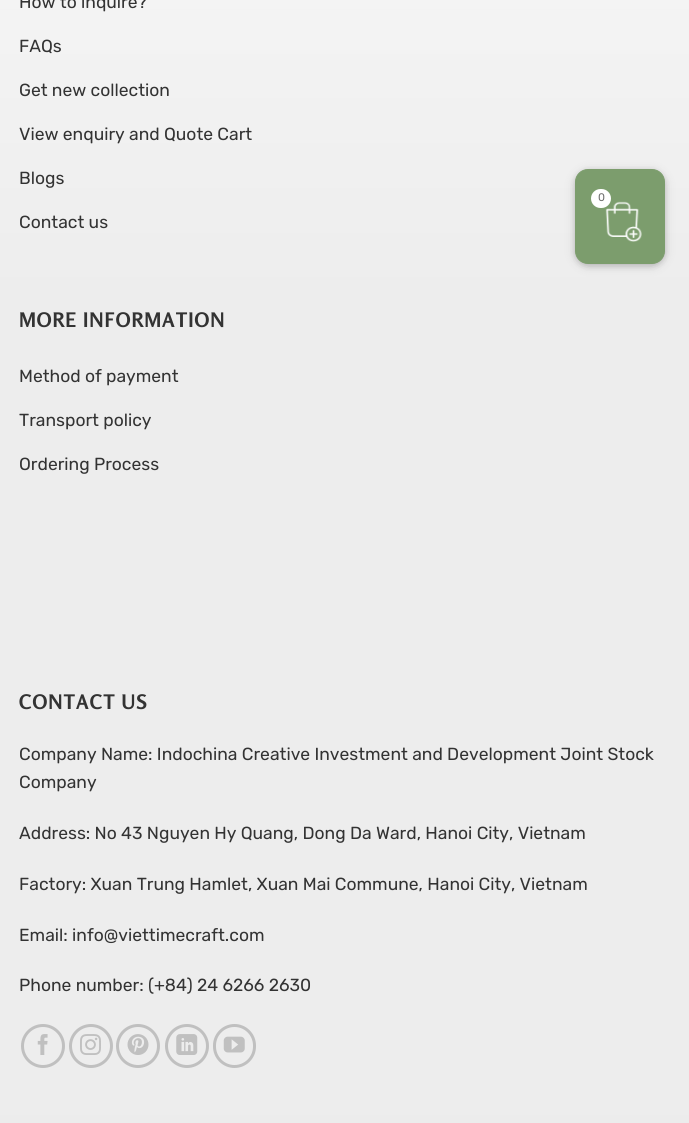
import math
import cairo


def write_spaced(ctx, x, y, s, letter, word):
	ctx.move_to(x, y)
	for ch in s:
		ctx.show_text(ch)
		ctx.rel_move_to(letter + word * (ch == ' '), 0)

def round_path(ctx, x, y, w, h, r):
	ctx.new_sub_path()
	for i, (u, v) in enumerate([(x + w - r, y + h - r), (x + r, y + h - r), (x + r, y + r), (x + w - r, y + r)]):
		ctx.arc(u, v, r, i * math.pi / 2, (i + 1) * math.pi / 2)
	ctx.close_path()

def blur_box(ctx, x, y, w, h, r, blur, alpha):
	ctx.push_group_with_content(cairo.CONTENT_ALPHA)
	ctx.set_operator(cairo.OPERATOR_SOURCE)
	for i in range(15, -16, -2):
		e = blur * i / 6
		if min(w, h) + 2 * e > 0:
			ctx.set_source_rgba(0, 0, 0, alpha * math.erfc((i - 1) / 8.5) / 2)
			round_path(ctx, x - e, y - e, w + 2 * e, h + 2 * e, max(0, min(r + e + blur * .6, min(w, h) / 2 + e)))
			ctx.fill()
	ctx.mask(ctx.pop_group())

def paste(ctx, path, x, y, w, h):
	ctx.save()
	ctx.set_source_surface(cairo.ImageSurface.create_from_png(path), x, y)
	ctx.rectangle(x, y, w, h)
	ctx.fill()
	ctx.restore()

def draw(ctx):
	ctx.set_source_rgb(1, 1, 1)
	ctx.paint()
	gradient = cairo.LinearGradient(345, -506, 345, 1115)
	gradient.add_color_stop_rgba(0, 1, 1, 1, 1)
	gradient.add_color_stop_rgba(0.5, 0.929, 0.929, 0.929, 1)
	ctx.set_source(gradient)
	ctx.rectangle(0, 0, 689, 1115)
	ctx.fill()
	ctx.select_font_face('Rubik Light')
	ctx.set_font_size(17.5)
	ctx.set_source_rgb(0.2, 0.2, 0.2)
	for x, y, s in [
		(19, 8, 'How to inquire?'),
		(19, 52, 'FAQs'),
		(19, 96, 'Get new collection'),
		(19, 140, 'View enquiry and Quote Cart'),
		(19, 184, 'Blogs'),
		(19, 228, 'Contact us'),
	]:
		ctx.move_to(x, y)
		ctx.show_text(s)
	ctx.select_font_face('Rosario', cairo.FONT_SLANT_NORMAL, cairo.FONT_WEIGHT_BOLD)
	ctx.set_font_size(20)
	write_spaced(ctx, 19, 327, 'MORE INFORMATION', 1, 0)
	ctx.select_font_face('Rubik Light')
	ctx.set_font_size(17.5)
	for x, y, s in [
		(19, 382, 'Method of payment'),
		(19, 426, 'Transport policy'),
		(19, 470, 'Ordering Process'),
	]:
		ctx.move_to(x, y)
		ctx.show_text(s)
	ctx.select_font_face('Rosario', cairo.FONT_SLANT_NORMAL, cairo.FONT_WEIGHT_BOLD)
	ctx.set_font_size(20)
	write_spaced(ctx, 19, 709, 'CONTACT US', 1, 0)
	ctx.select_font_face('Rubik Light')
	ctx.set_font_size(17.5)
	for x, y, s in [
		(19, 760, 'Company Name: Indochina Creative Investment and Development Joint Stock'),
		(19, 788, 'Company'),
		(19, 839, 'Address: No 43 Nguyen Hy Quang, Dong Da Ward, Hanoi City, Vietnam'),
		(19, 890, 'Factory: Xuan Trung Hamlet, Xuan Mai Commune, Hanoi City, Vietnam'),
		(19, 941, 'Email: info@viettimecraft.com'),
		(19, 991, 'Phone number: (+84) 24 6266 2630'),
	]:
		ctx.move_to(x, y)
		ctx.show_text(s)
	ctx.new_path()
	ctx.arc(43, 1046, 20.5, 0, 2 * math.pi)
	ctx.set_source_rgb(0.753, 0.753, 0.753)
	ctx.set_line_width(3)
	ctx.stroke()
	paste(ctx, 'media/1.png', 37, 1034, 11, 21)
	ctx.arc(91, 1046, 20.5, 0, 2 * math.pi)
	ctx.stroke()
	paste(ctx, 'media/2.png', 80, 1034, 21, 21)
	ctx.arc(138, 1046, 20.5, 0, 2 * math.pi)
	ctx.stroke()
	paste(ctx, 'media/3.png', 127, 1034, 22, 21)
	ctx.arc(187, 1046, 20.5, 0, 2 * math.pi)
	ctx.stroke()
	paste(ctx, 'media/4.png', 176, 1034, 22, 21)
	round_path(ctx, 214.5, 1025.5, 40, 41, 20)
	ctx.stroke()
	paste(ctx, 'media/5.png', 223, 1036, 22, 17)
	ctx.set_source_rgb(0.925, 0.925, 0.925)
	ctx.rectangle(0, 1115, 689, 8)
	ctx.fill()
	ctx.set_source_rgb(0, 0, 0)
	blur_box(ctx, 575, 171, 90, 95, 13, 6, 0.12)
	blur_box(ctx, 575, 171, 90, 95, 13, 3, 0.16)
	ctx.set_source_rgb(0.486, 0.616, 0.427)
	round_path(ctx, 575.5, 169.5, 89, 94, 12.5)
	ctx.fill_preserve()
	ctx.set_line_width(1)
	ctx.stroke()
	paste(ctx, 'media/6.png', 605, 201, 37, 41)
	ctx.set_source_rgb(1, 1, 1)
	round_path(ctx, 592.5, 190.5, 17, 16, 8)
	ctx.fill_preserve()
	ctx.set_line_width(3)
	ctx.stroke()
	ctx.set_font_size(11)
	ctx.set_source_rgb(0.427, 0.427, 0.427)
	ctx.move_to(598, 201)
	ctx.show_text('0')


surface = cairo.ImageSurface(cairo.FORMAT_RGB24, 689, 1123)
ctx = cairo.Context(surface)
options = cairo.FontOptions()
options.set_hint_metrics(cairo.HINT_METRICS_OFF)
options.set_hint_style(cairo.HINT_STYLE_NONE)
ctx.set_font_options(options)
ctx.set_miter_limit(4)
draw(ctx)
surface.write_to_png('image.png')
